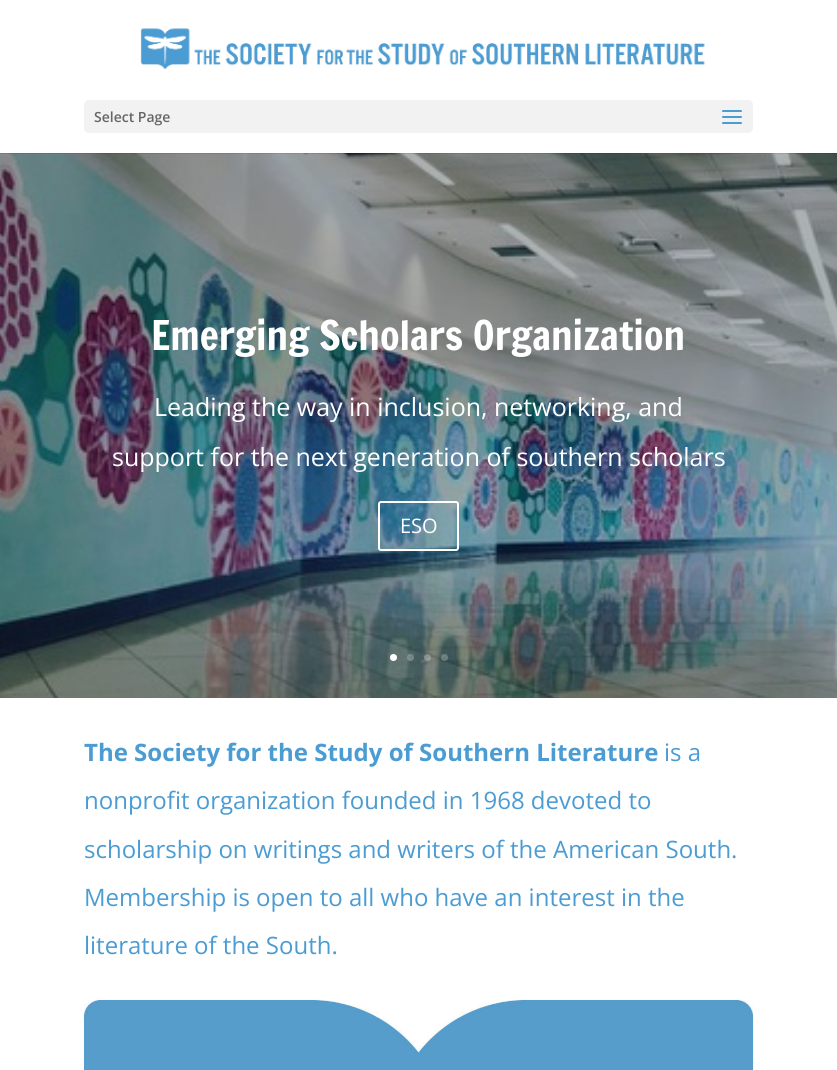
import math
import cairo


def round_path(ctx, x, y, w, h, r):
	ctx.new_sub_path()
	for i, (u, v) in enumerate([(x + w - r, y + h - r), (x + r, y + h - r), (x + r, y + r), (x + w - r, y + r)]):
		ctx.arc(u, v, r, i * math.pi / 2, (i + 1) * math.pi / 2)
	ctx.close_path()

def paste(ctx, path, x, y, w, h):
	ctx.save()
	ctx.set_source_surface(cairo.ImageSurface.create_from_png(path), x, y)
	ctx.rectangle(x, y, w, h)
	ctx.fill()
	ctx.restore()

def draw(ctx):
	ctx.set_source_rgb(1, 1, 1)
	ctx.paint()
	paste(ctx, 'media/3.png', 0, 153, 837, 545)
	ctx.set_source_rgba(0, 0, 0, 0.1)
	ctx.rectangle(0, 153, 837, 1)
	ctx.fill()
	paste(ctx, 'media/1.png', 140, 28, 565, 41)
	ctx.set_source_rgb(0.949, 0.949, 0.949)
	round_path(ctx, 84, 100, 669, 33, 5)
	ctx.fill()
	ctx.select_font_face('Open Sans SemiBold')
	ctx.set_font_size(14)
	ctx.set_source_rgb(0.4, 0.4, 0.4)
	ctx.move_to(94, 122)
	ctx.show_text('Select Page')
	paste(ctx, 'media/2.png', 722, 110, 20, 14)
	ctx.select_font_face('Francois One')
	ctx.set_font_size(40)
	ctx.set_source_rgb(1, 1, 1)
	ctx.move_to(151, 350)
	ctx.show_text('Emerging Scholars Organization')
	ctx.select_font_face('Open Sans')
	ctx.set_font_size(25)
	ctx.move_to(154, 416)
	ctx.show_text('Leading the way in inclusion, networking, and')
	ctx.move_to(112, 466)
	ctx.show_text('support for the next generation of southern scholars')
	round_path(ctx, 379, 502, 79, 48, 2)
	ctx.stroke()
	ctx.set_font_size(20)
	ctx.move_to(400, 533)
	ctx.show_text('ESO')
	ctx.new_path()
	ctx.arc(393.5, 657.5, 3.5, 0, 2 * math.pi)
	ctx.fill()
	ctx.set_source_rgba(1, 1, 1, 0.25)
	ctx.arc(410.5, 657.5, 3.5, 0, 2 * math.pi)
	ctx.fill()
	ctx.arc(427.5, 657.5, 3.5, 0, 2 * math.pi)
	ctx.fill()
	ctx.arc(444.5, 657.5, 3.5, 0, 2 * math.pi)
	ctx.fill()
	ctx.select_font_face('Open Sans', cairo.FONT_SLANT_NORMAL, cairo.FONT_WEIGHT_BOLD)
	ctx.set_font_size(24)
	ctx.set_source_rgb(0.294, 0.612, 0.827)
	ctx.move_to(84, 761)
	ctx.show_text('The Society for the Study of Southern Literature')
	ctx.select_font_face('Open Sans')
	for x, y, s in [
		(664, 761, 'is a'),
		(84, 809, 'nonprofit organization founded in 1968 devoted to'),
		(84, 858, 'scholarship on writings and writers of the American South.'),
		(84, 906, 'Membership is open to all who have an interest in the'),
		(84, 954, 'literature of the South.'),
	]:
		ctx.move_to(x, y)
		ctx.show_text(s)
	paste(ctx, 'media/4.png', 83, 999, 671, 71)


surface = cairo.ImageSurface(cairo.FORMAT_RGB24, 837, 1070)
ctx = cairo.Context(surface)
options = cairo.FontOptions()
options.set_hint_metrics(cairo.HINT_METRICS_OFF)
options.set_hint_style(cairo.HINT_STYLE_NONE)
ctx.set_font_options(options)
ctx.set_miter_limit(4)
draw(ctx)
surface.write_to_png('image.png')
